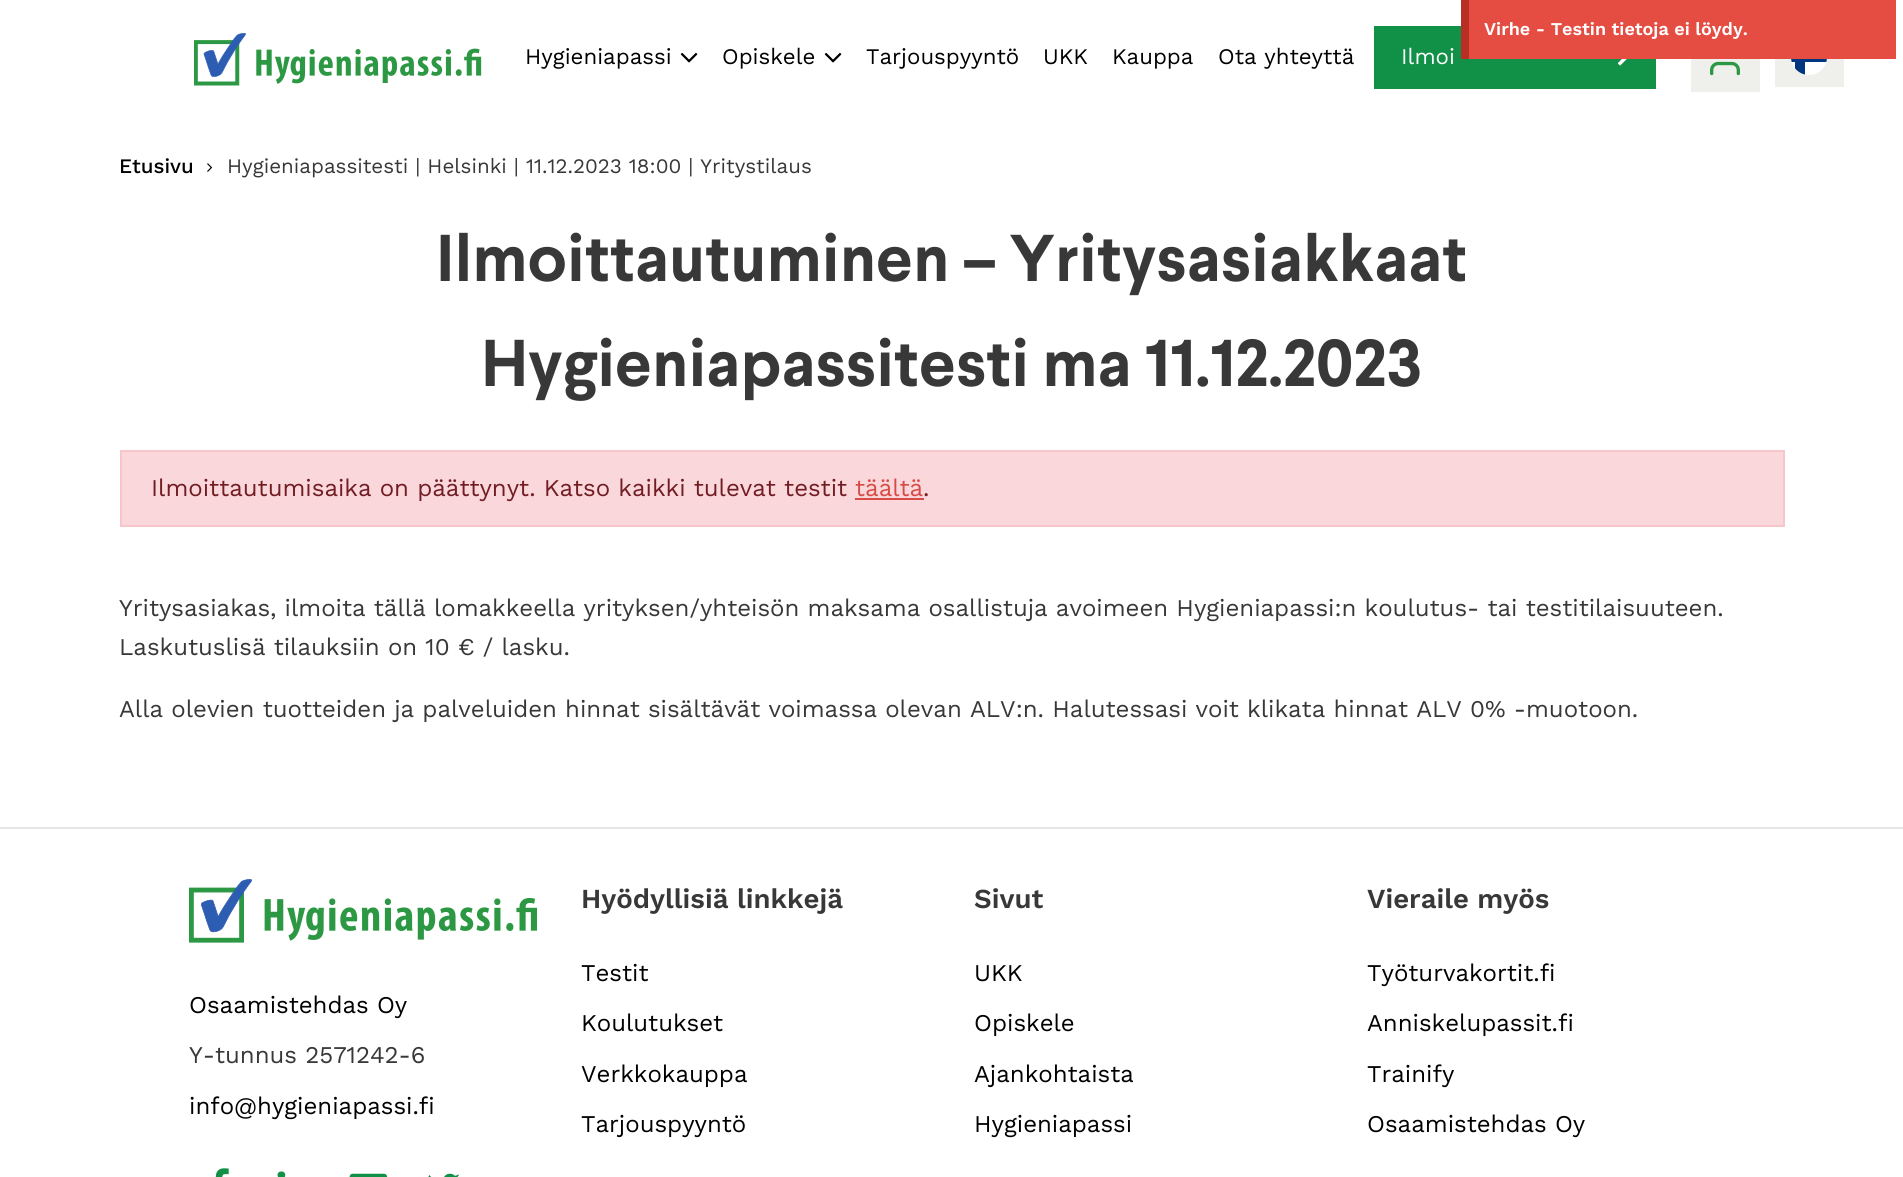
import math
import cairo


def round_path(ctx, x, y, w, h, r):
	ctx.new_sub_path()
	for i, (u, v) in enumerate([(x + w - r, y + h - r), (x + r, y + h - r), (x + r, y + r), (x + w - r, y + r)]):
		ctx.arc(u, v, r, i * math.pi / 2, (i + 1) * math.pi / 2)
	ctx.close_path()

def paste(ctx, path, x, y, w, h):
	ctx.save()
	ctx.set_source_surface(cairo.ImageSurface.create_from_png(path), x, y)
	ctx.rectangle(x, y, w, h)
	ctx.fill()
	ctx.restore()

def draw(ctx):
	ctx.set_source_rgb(1, 1, 1)
	ctx.paint()
	ctx.set_source_rgb(0.067, 0.565, 0.282)
	ctx.rectangle(1374, 26, 282, 63)
	ctx.fill()
	ctx.set_source_rgb(0.937, 0.941, 0.925)
	ctx.rectangle(1775, 59, 69, 28)
	ctx.fill()
	ctx.set_source_rgb(1, 1, 1)
	ctx.arc(1809, 57, 18, 0, 2 * math.pi)
	ctx.fill()
	ctx.set_source_rgb(0.898, 0.302, 0.259)
	ctx.rectangle(1469, 0, 427, 59)
	ctx.fill()
	ctx.set_source_rgb(0.722, 0.18, 0.141)
	ctx.rectangle(1461, 0, 8, 59)
	ctx.fill()
	ctx.select_font_face('Work Sans SemiBold')
	ctx.set_font_size(18)
	ctx.set_source_rgb(1, 1, 1)
	ctx.move_to(1484, 35)
	ctx.show_text('Virhe - Testin tietoja ei löydy.')
	ctx.select_font_face('Work Sans Medium')
	ctx.set_font_size(20.6)
	ctx.set_source_rgb(0, 0, 0)
	ctx.move_to(119, 173)
	ctx.show_text('Etusivu')
	paste(ctx, 'media/1.png', 207, 163, 6, 9)
	ctx.select_font_face('Work Sans')
	ctx.set_source_rgb(0.22, 0.22, 0.22)
	ctx.move_to(227, 173)
	ctx.show_text('Hygieniapassitesti | Helsinki | 11.12.2023 18:00 | Yritystilaus')
	ctx.select_font_face('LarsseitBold')
	ctx.set_font_size(66)
	ctx.move_to(436, 281)
	ctx.show_text('Ilmoittautuminen – Yritysasiakkaat')
	ctx.move_to(481, 386)
	ctx.show_text('Hygieniapassitesti ma 11.12.2023')
	ctx.set_source_rgb(0.973, 0.843, 0.855)
	ctx.rectangle(121, 451, 1663, 75)
	ctx.fill_preserve()
	ctx.set_source_rgb(0.961, 0.776, 0.796)
	ctx.stroke()
	ctx.select_font_face('Work Sans')
	ctx.set_font_size(24)
	ctx.set_source_rgb(0.447, 0.11, 0.141)
	ctx.move_to(151, 496)
	ctx.show_text('Ilmoittautumisaika on päättynyt. Katso kaikki tulevat testit')
	ctx.set_source_rgb(0.843, 0.294, 0.278)
	ctx.move_to(855, 496)
	ctx.show_text('täältä')
	ctx.rectangle(855, 498, 69, 2)
	ctx.fill()
	ctx.set_source_rgb(0.447, 0.11, 0.141)
	ctx.move_to(923, 496)
	ctx.show_text('.')
	ctx.set_source_rgb(0.22, 0.22, 0.22)
	for x, y, s in [
		(119, 616, 'Yritysasiakas, ilmoita tällä lomakkeella yrityksen/yhteisön maksama osallistuja avoimeen Hygieniapassi:n koulutus- tai testitilaisuuteen.'),
		(119, 655, 'Laskutuslisä tilauksiin on 10 € / lasku.'),
		(119, 717, 'Alla olevien tuotteiden ja palveluiden hinnat sisältävät voimassa olevan ALV:n. Halutessasi voit klikata hinnat ALV 0% -muotoon.'),
	]:
		ctx.move_to(x, y)
		ctx.show_text(s)
	paste(ctx, 'media/2.png', 194, 33, 288, 53)
	ctx.set_font_size(22.25)
	ctx.set_source_rgb(0, 0, 0)
	ctx.move_to(525, 64)
	ctx.show_text('Hygieniapassi')
	paste(ctx, 'media/3.png', 680, 52, 18, 11)
	ctx.move_to(722, 64)
	ctx.show_text('Opiskele')
	paste(ctx, 'media/3.png', 824, 52, 18, 11)
	for x, y, s in [
		(866, 64, 'Tarjouspyyntö'),
		(1043, 64, 'UKK'),
		(1112, 64, 'Kauppa'),
		(1218, 64, 'Ota yhteyttä'),
	]:
		ctx.move_to(x, y)
		ctx.show_text(s)
	ctx.set_source_rgb(1, 1, 1)
	ctx.move_to(1401, 64)
	ctx.show_text('Ilmoi')
	paste(ctx, 'media/4.png', 1617, 59, 10, 7)
	ctx.save()
	round_path(ctx, 1791, 39, 36, 36, 18)
	ctx.clip()
	ctx.set_source_rgb(0, 0.208, 0.502)
	ctx.rectangle(1791, 59, 36, 3)
	ctx.fill()
	ctx.rectangle(1795, 59, 10, 16)
	ctx.fill()
	ctx.restore()
	ctx.set_source_rgb(0.937, 0.941, 0.925)
	ctx.rectangle(1691, 59, 69, 33)
	ctx.fill()
	paste(ctx, 'media/5.png', 1710, 61, 30, 15)
	ctx.set_source_rgb(0.902, 0.902, 0.902)
	ctx.rectangle(0, 827, 1903, 2)
	ctx.fill()
	paste(ctx, 'media/6.png', 189, 879, 348, 64)
	ctx.set_font_size(24)
	ctx.set_source_rgb(0, 0, 0)
	ctx.move_to(189, 1013)
	ctx.show_text('Osaamistehdas Oy')
	ctx.set_source_rgb(0.22, 0.22, 0.22)
	ctx.move_to(189, 1063)
	ctx.show_text('Y-tunnus 2571242-6')
	ctx.set_source_rgb(0, 0, 0)
	ctx.move_to(189, 1114)
	ctx.show_text('info@hygieniapassi.fi')
	paste(ctx, 'media/7.png', 215, 1168, 14, 9)
	paste(ctx, 'media/8.png', 277, 1171, 9, 6)
	paste(ctx, 'media/9.png', 349, 1173, 39, 4)
	paste(ctx, 'media/10.png', 428, 1173, 32, 4)
	ctx.select_font_face('Work Sans SemiBold')
	ctx.set_font_size(27.5)
	ctx.set_source_rgb(0.22, 0.22, 0.22)
	ctx.move_to(581, 908)
	ctx.show_text('Hyödyllisiä linkkejä')
	ctx.select_font_face('Work Sans')
	ctx.set_font_size(24)
	ctx.set_source_rgb(0, 0, 0)
	for x, y, s in [
		(581, 981, 'Testit'),
		(581, 1031, 'Koulutukset'),
		(581, 1082, 'Verkkokauppa'),
		(581, 1132, 'Tarjouspyyntö'),
	]:
		ctx.move_to(x, y)
		ctx.show_text(s)
	ctx.select_font_face('Work Sans SemiBold')
	ctx.set_font_size(27.5)
	ctx.set_source_rgb(0.22, 0.22, 0.22)
	ctx.move_to(974, 908)
	ctx.show_text('Sivut')
	ctx.select_font_face('Work Sans')
	ctx.set_font_size(24)
	ctx.set_source_rgb(0, 0, 0)
	for x, y, s in [
		(974, 981, 'UKK'),
		(974, 1031, 'Opiskele'),
		(974, 1082, 'Ajankohtaista'),
		(974, 1132, 'Hygieniapassi'),
	]:
		ctx.move_to(x, y)
		ctx.show_text(s)
	ctx.select_font_face('Work Sans SemiBold')
	ctx.set_font_size(27.5)
	ctx.set_source_rgb(0.22, 0.22, 0.22)
	ctx.move_to(1367, 908)
	ctx.show_text('Vieraile myös')
	ctx.select_font_face('Work Sans')
	ctx.set_font_size(24)
	ctx.set_source_rgb(0, 0, 0)
	for x, y, s in [
		(1367, 981, 'Työturvakortit.fi'),
		(1367, 1031, 'Anniskelupassit.fi'),
		(1367, 1082, 'Trainify'),
		(1367, 1132, 'Osaamistehdas Oy'),
	]:
		ctx.move_to(x, y)
		ctx.show_text(s)


surface = cairo.ImageSurface(cairo.FORMAT_RGB24, 1903, 1177)
ctx = cairo.Context(surface)
options = cairo.FontOptions()
options.set_hint_metrics(cairo.HINT_METRICS_OFF)
options.set_hint_style(cairo.HINT_STYLE_NONE)
ctx.set_font_options(options)
ctx.set_miter_limit(4)
draw(ctx)
surface.write_to_png('image.png')
